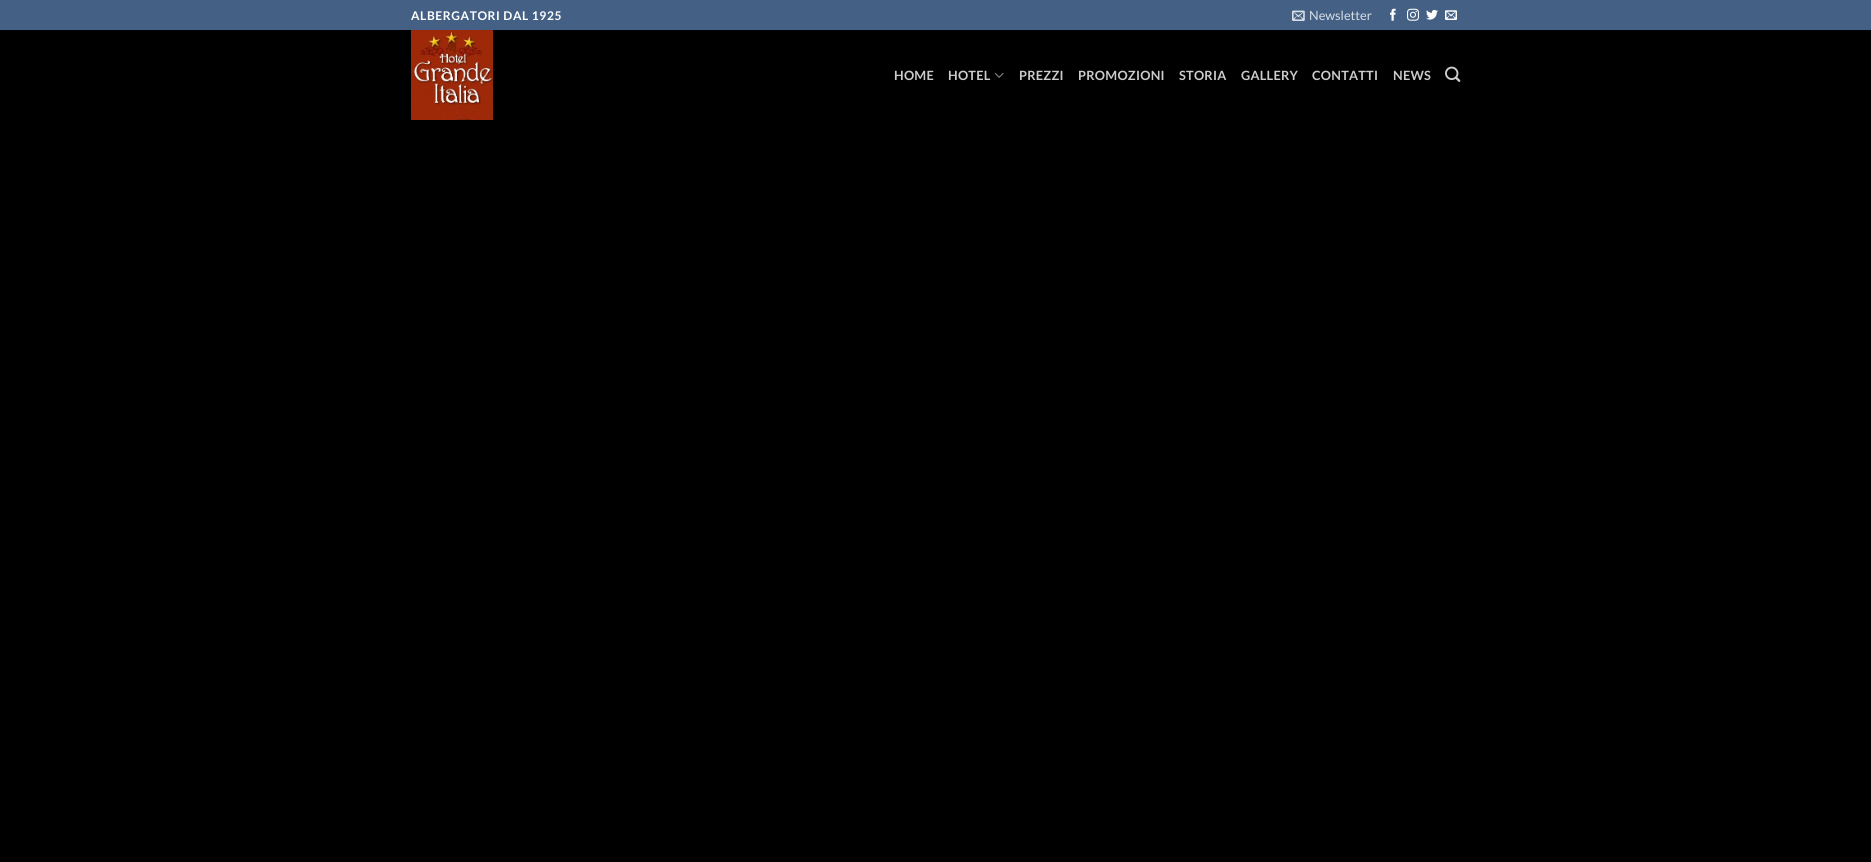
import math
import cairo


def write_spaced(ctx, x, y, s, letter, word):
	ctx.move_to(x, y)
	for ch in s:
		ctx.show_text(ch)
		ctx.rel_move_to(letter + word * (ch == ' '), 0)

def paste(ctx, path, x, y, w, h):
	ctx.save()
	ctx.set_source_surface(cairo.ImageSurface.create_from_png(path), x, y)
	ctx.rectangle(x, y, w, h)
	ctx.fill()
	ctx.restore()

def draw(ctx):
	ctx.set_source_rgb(0, 0, 0)
	ctx.paint()
	ctx.set_source_rgb(0.267, 0.376, 0.518)
	ctx.rectangle(0, 0, 1871, 30)
	ctx.fill()
	ctx.select_font_face('Lato', cairo.FONT_SLANT_NORMAL, cairo.FONT_WEIGHT_BOLD)
	ctx.set_font_size(12)
	ctx.set_source_rgb(1, 1, 1)
	write_spaced(ctx, 411, 20, 'ALBERGATORI DAL 1925', 0.6, 0)
	paste(ctx, 'media/1.png', 1292, 10, 13, 11)
	ctx.select_font_face('Lato')
	ctx.set_font_size(12.75)
	ctx.set_source_rgb(0.855, 0.875, 0.902)
	ctx.move_to(1309, 20)
	ctx.show_text('Newsletter')
	paste(ctx, 'media/2.png', 1390, 8, 6, 13)
	paste(ctx, 'media/3.png', 1407, 8, 12, 13)
	paste(ctx, 'media/4.png', 1426, 9, 12, 11)
	paste(ctx, 'media/5.png', 1445, 10, 12, 10)
	paste(ctx, 'media/6.png', 411, 30, 82, 90)
	ctx.select_font_face('Lato', cairo.FONT_SLANT_NORMAL, cairo.FONT_WEIGHT_BOLD)
	ctx.set_source_rgb(0.8, 0.8, 0.8)
	write_spaced(ctx, 894, 80, 'HOME', 0.25, 0)
	write_spaced(ctx, 948, 80, 'HOTEL', 0.25, 0)
	paste(ctx, 'media/7.png', 994, 72, 10, 6)
	for x, y, s in [
		(1019, 80, 'PREZZI'),
		(1078, 80, 'PROMOZIONI'),
		(1179, 80, 'STORIA'),
		(1241, 80, 'GALLERY'),
		(1312, 80, 'CONTATTI'),
		(1393, 80, 'NEWS'),
	]:
		write_spaced(ctx, x, y, s, 0.25, 0)
	paste(ctx, 'media/8.png', 1445, 66, 16, 16)


surface = cairo.ImageSurface(cairo.FORMAT_RGB24, 1871, 862)
ctx = cairo.Context(surface)
options = cairo.FontOptions()
options.set_hint_metrics(cairo.HINT_METRICS_OFF)
options.set_hint_style(cairo.HINT_STYLE_NONE)
ctx.set_font_options(options)
ctx.set_miter_limit(4)
draw(ctx)
surface.write_to_png('image.png')
